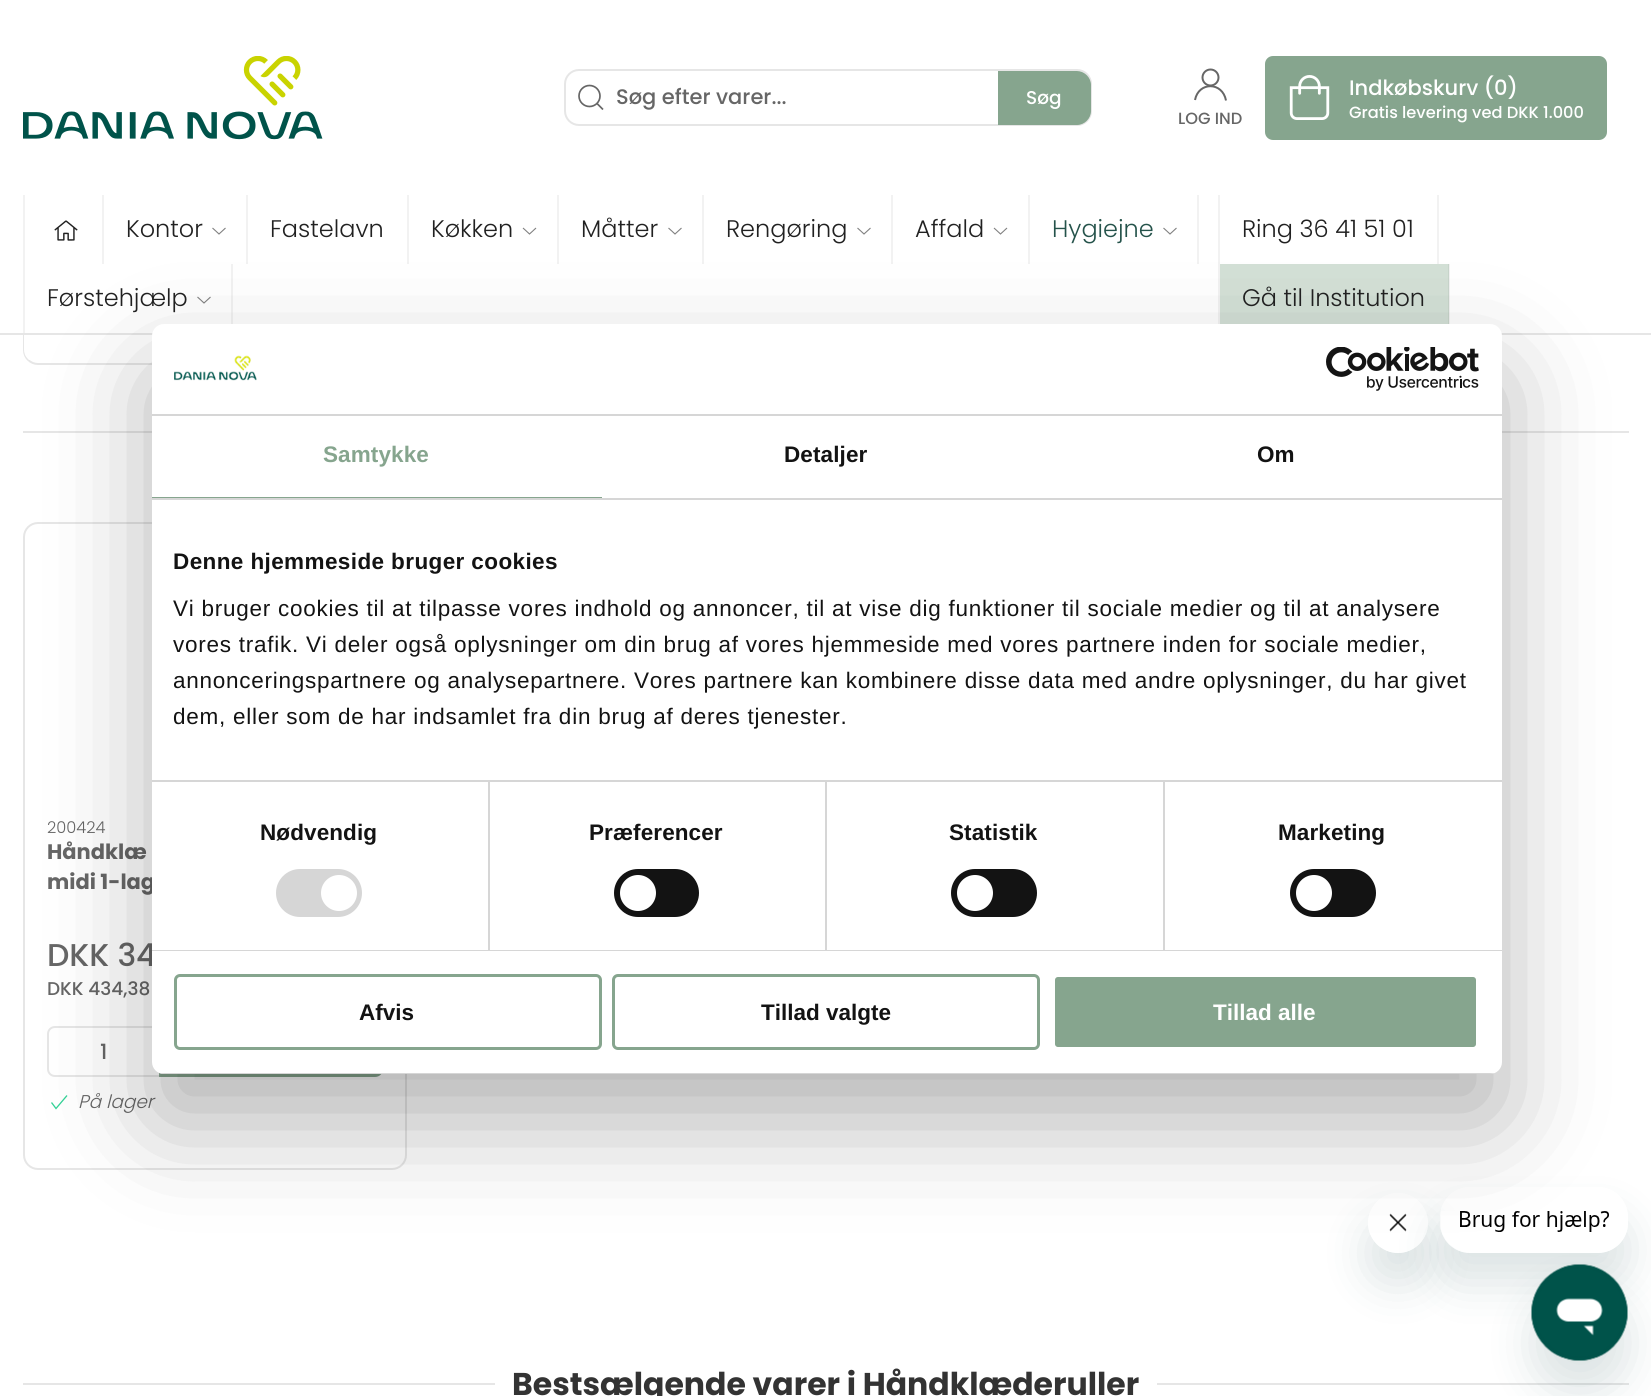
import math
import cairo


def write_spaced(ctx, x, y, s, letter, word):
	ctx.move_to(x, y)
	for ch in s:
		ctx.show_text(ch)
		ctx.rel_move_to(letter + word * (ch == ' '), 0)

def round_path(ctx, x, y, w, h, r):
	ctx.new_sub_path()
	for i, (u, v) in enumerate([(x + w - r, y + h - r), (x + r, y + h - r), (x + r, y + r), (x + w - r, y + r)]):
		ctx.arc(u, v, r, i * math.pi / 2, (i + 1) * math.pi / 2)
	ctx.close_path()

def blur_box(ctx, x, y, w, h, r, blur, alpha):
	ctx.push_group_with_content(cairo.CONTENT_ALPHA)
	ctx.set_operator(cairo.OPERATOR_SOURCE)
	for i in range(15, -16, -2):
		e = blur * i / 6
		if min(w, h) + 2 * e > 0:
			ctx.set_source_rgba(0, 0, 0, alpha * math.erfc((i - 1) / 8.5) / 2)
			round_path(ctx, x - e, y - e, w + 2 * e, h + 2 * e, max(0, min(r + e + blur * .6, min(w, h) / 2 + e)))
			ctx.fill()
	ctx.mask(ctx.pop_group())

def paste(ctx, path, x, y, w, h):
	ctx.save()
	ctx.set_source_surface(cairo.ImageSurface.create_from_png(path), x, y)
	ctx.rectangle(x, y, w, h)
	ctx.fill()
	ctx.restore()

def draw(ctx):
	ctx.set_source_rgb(1, 1, 1)
	ctx.paint()
	round_path(ctx, 24, -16, 790, 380, 14)
	ctx.set_source_rgb(0.902, 0.902, 0.902)
	ctx.stroke()
	ctx.set_source_rgb(1, 1, 1)
	ctx.rectangle(23, 0, 792, 333)
	ctx.fill()
	paste(ctx, 'media/1.png', 23, 56, 300, 84)
	round_path(ctx, 565, 70, 526, 55, 14)
	ctx.set_source_rgb(0.902, 0.902, 0.902)
	ctx.stroke()
	ctx.arc(589.5, 96, 10.5, 0, 2 * math.pi)
	ctx.set_source_rgb(0.4, 0.4, 0.4)
	ctx.set_line_width(1.7)
	ctx.stroke()
	ctx.new_path()
	ctx.move_to(597, 103.5)
	ctx.line_to(603, 109.5)
	ctx.close_path()
	ctx.stroke()
	ctx.select_font_face('Poppins Medium')
	ctx.set_font_size(21)
	ctx.move_to(616, 104)
	ctx.show_text('Søg efter varer...')
	ctx.set_source_rgb(0.525, 0.647, 0.557)
	ctx.new_path()
	ctx.move_to(998, 71)
	ctx.line_to(1077, 71)
	ctx.curve_to(1084.5, 71, 1091, 77.5, 1091, 85)
	ctx.line_to(1091, 111)
	ctx.curve_to(1091, 118.5, 1084.5, 125, 1077, 125)
	ctx.line_to(998, 125)
	ctx.close_path()
	ctx.fill()
	ctx.set_font_size(18.5)
	ctx.set_source_rgb(1, 1, 1)
	ctx.move_to(1026, 104)
	ctx.show_text('Søg')
	ctx.new_path()
	ctx.arc(1210.5, 77.5, 8, 0, 2 * math.pi)
	ctx.set_source_rgb(0.4, 0.4, 0.4)
	ctx.set_line_width(2)
	ctx.stroke()
	ctx.new_path()
	ctx.move_to(1195, 100)
	ctx.curve_to(1198.5, 81.5, 1222.5, 81.5, 1226, 100.5)
	ctx.stroke()
	ctx.set_font_size(16.25)
	ctx.move_to(1178, 124)
	ctx.show_text('LOG IND')
	ctx.set_source_rgb(0.525, 0.647, 0.557)
	round_path(ctx, 1265, 56, 342, 84, 8)
	ctx.fill()
	paste(ctx, 'media/2.png', 1289, 75, 41, 45)
	ctx.set_font_size(21)
	ctx.set_source_rgb(1, 1, 1)
	ctx.move_to(1349, 95)
	ctx.show_text('Indkøbskurv (0)')
	ctx.set_font_size(16.25)
	ctx.move_to(1349, 118)
	ctx.show_text('Gratis levering ved DKK 1.000')
	ctx.set_source_rgb(0.949, 0.949, 0.949)
	ctx.rectangle(1449, 264, 1, 60)
	ctx.fill()
	ctx.set_source_rgb(0.902, 0.902, 0.902)
	ctx.rectangle(0, 333, 1651, 2)
	ctx.fill()
	ctx.set_source_rgb(0.949, 0.949, 0.949)
	ctx.rectangle(23, 195, 2, 138)
	ctx.rectangle(102, 195, 2, 69)
	ctx.fill()
	paste(ctx, 'media/3.png', 54, 220, 24, 21)
	ctx.rectangle(246, 195, 2, 69)
	ctx.fill()
	ctx.select_font_face('Poppins Light')
	ctx.set_font_size(24)
	ctx.set_source_rgb(0.129, 0.129, 0.129)
	ctx.move_to(126, 237)
	ctx.show_text('Kontor')
	ctx.new_path()
	ctx.move_to(225.5, 228)
	ctx.line_to(219, 234)
	ctx.line_to(212.5, 228)
	ctx.set_source_rgb(0.502, 0.502, 0.502)
	ctx.set_line_width(1.1)
	ctx.stroke()
	ctx.set_source_rgb(0.949, 0.949, 0.949)
	ctx.rectangle(407, 195, 2, 69)
	ctx.fill()
	ctx.set_source_rgb(0.129, 0.129, 0.129)
	ctx.move_to(270, 237)
	ctx.show_text('Fastelavn')
	ctx.set_source_rgb(0.949, 0.949, 0.949)
	ctx.rectangle(557, 195, 2, 69)
	ctx.fill()
	ctx.set_source_rgb(0.129, 0.129, 0.129)
	ctx.move_to(431, 237)
	ctx.show_text('Køkken')
	ctx.new_path()
	ctx.move_to(536, 228)
	ctx.line_to(529.5, 234)
	ctx.line_to(523, 228)
	ctx.set_source_rgb(0.502, 0.502, 0.502)
	ctx.stroke()
	ctx.set_source_rgb(0.949, 0.949, 0.949)
	ctx.rectangle(702, 195, 2, 69)
	ctx.fill()
	ctx.set_source_rgb(0.129, 0.129, 0.129)
	ctx.move_to(581, 237)
	ctx.show_text('Måtter')
	ctx.new_path()
	ctx.move_to(681.5, 228)
	ctx.line_to(675, 234)
	ctx.line_to(668.5, 228)
	ctx.set_source_rgb(0.502, 0.502, 0.502)
	ctx.stroke()
	ctx.set_source_rgb(0.949, 0.949, 0.949)
	ctx.rectangle(891, 195, 2, 69)
	ctx.fill()
	ctx.set_source_rgb(0.129, 0.129, 0.129)
	ctx.move_to(726, 237)
	ctx.show_text('Rengøring')
	ctx.new_path()
	ctx.move_to(870.5, 228)
	ctx.line_to(864, 234)
	ctx.line_to(857.5, 228)
	ctx.set_source_rgb(0.502, 0.502, 0.502)
	ctx.stroke()
	ctx.set_source_rgb(0.949, 0.949, 0.949)
	ctx.rectangle(1028, 195, 2, 69)
	ctx.fill()
	ctx.set_source_rgb(0.129, 0.129, 0.129)
	ctx.move_to(915, 237)
	ctx.show_text('Affald')
	ctx.new_path()
	ctx.move_to(1007, 228)
	ctx.line_to(1000.5, 234)
	ctx.line_to(994, 228)
	ctx.set_source_rgb(0.502, 0.502, 0.502)
	ctx.stroke()
	ctx.set_source_rgb(0.949, 0.949, 0.949)
	ctx.rectangle(1197, 195, 2, 69)
	ctx.fill()
	ctx.set_source_rgb(0.145, 0.325, 0.294)
	ctx.move_to(1052, 237)
	ctx.show_text('Hygiejne')
	ctx.new_path()
	ctx.move_to(1176.5, 228)
	ctx.line_to(1170, 234)
	ctx.line_to(1163.5, 228)
	ctx.set_source_rgb(0.502, 0.502, 0.502)
	ctx.stroke()
	ctx.set_source_rgb(0.949, 0.949, 0.949)
	ctx.rectangle(231, 264, 2, 60)
	ctx.fill()
	ctx.set_source_rgb(0.129, 0.129, 0.129)
	ctx.move_to(47, 306)
	ctx.show_text('Førstehjælp')
	ctx.new_path()
	ctx.move_to(210.5, 297)
	ctx.line_to(204, 303)
	ctx.line_to(197.5, 297)
	ctx.set_source_rgb(0.502, 0.502, 0.502)
	ctx.stroke()
	ctx.set_source_rgb(0.949, 0.949, 0.949)
	ctx.rectangle(1218, 195, 2, 129)
	ctx.fill()
	ctx.rectangle(1437, 195, 2, 69)
	ctx.fill()
	ctx.set_source_rgb(0.129, 0.129, 0.129)
	ctx.move_to(1242, 237)
	ctx.show_text('Ring 36 41 51 01')
	ctx.set_source_rgb(0.827, 0.878, 0.839)
	ctx.rectangle(1220, 264, 228, 60)
	ctx.fill()
	ctx.set_source_rgb(0.784, 0.835, 0.796)
	ctx.rectangle(1448, 264, 1, 60)
	ctx.fill()
	ctx.set_source_rgb(0.129, 0.129, 0.129)
	ctx.move_to(1242, 306)
	ctx.show_text('Gå til Institution')
	paste(ctx, 'media/4.png', 24, 335, 129, 25)
	ctx.set_source_rgb(0.902, 0.902, 0.902)
	ctx.rectangle(23, 431, 129, 2)
	ctx.fill()
	ctx.rectangle(1502, 431, 127, 2)
	ctx.fill()
	round_path(ctx, 24, 523, 382, 646, 14)
	ctx.set_line_width(2)
	ctx.stroke()
	ctx.set_font_size(16.25)
	ctx.set_source_rgb(0.4, 0.4, 0.4)
	ctx.move_to(47, 833)
	ctx.show_text('200424')
	ctx.select_font_face('Poppins', cairo.FONT_SLANT_NORMAL, cairo.FONT_WEIGHT_BOLD)
	ctx.set_font_size(21)
	ctx.move_to(47, 859)
	ctx.show_text('Håndklæ')
	ctx.move_to(47, 889)
	ctx.show_text('midi 1-lag')
	ctx.select_font_face('Poppins Medium')
	ctx.set_font_size(31.5)
	ctx.move_to(47, 966)
	ctx.show_text('DKK 34')
	ctx.set_font_size(18.5)
	ctx.move_to(47, 995)
	ctx.show_text('DKK 434,38')
	ctx.new_path()
	ctx.move_to(55, 1027)
	ctx.line_to(160, 1027)
	ctx.line_to(160, 1076)
	ctx.line_to(55, 1076)
	ctx.curve_to(51, 1076, 48, 1073, 48, 1069)
	ctx.line_to(48, 1034)
	ctx.curve_to(48, 1030, 51, 1027, 55, 1027)
	ctx.close_path()
	ctx.set_source_rgb(0.902, 0.902, 0.902)
	ctx.stroke()
	ctx.set_font_size(21)
	ctx.set_source_rgb(0.4, 0.4, 0.4)
	ctx.move_to(100, 1059)
	ctx.show_text('1')
	ctx.set_source_rgb(0.525, 0.647, 0.557)
	ctx.new_path()
	ctx.move_to(159, 1026)
	ctx.line_to(375, 1026)
	ctx.curve_to(379.5, 1026, 383, 1029.5, 383, 1034)
	ctx.line_to(383, 1069)
	ctx.curve_to(383, 1073.5, 379.5, 1077, 375, 1077)
	ctx.line_to(159, 1077)
	ctx.close_path()
	ctx.fill()
	ctx.new_path()
	ctx.move_to(51.5, 1102.5)
	ctx.line_to(56, 1108.5)
	ctx.line_to(67, 1095.5)
	ctx.set_source_rgb(0.196, 0.824, 0.588)
	ctx.set_line_width(1.3)
	ctx.stroke()
	ctx.select_font_face('Poppins Light', cairo.FONT_SLANT_ITALIC)
	ctx.set_font_size(18.5)
	ctx.set_source_rgb(0.4, 0.4, 0.4)
	ctx.move_to(78, 1108)
	ctx.show_text('På lager')
	ctx.set_source_rgb(0.902, 0.902, 0.902)
	ctx.rectangle(23, 1383, 472, 2)
	ctx.fill()
	ctx.select_font_face('Poppins', cairo.FONT_SLANT_NORMAL, cairo.FONT_WEIGHT_BOLD)
	ctx.set_font_size(31.5)
	ctx.set_source_rgb(0.2, 0.2, 0.2)
	ctx.move_to(512, 1395)
	ctx.show_text('Bestsælgende varer i Håndklæderuller')
	ctx.set_source_rgb(0.902, 0.902, 0.902)
	ctx.rectangle(1157, 1383, 472, 2)
	ctx.fill()
	ctx.save()
	ctx.set_fill_rule(cairo.FILL_RULE_EVEN_ODD)
	ctx.new_path()
	ctx.move_to(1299, 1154)
	ctx.line_to(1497, 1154)
	ctx.line_to(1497, 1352)
	ctx.line_to(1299, 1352)
	ctx.close_path()
	ctx.move_to(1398, 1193)
	ctx.curve_to(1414.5, 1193, 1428, 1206.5, 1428, 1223)
	ctx.curve_to(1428, 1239.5, 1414.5, 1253, 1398, 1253)
	ctx.curve_to(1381.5, 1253, 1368, 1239.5, 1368, 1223)
	ctx.curve_to(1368, 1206.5, 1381.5, 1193, 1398, 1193)
	ctx.close_path()
	ctx.clip()
	ctx.set_source_rgb(0.09, 0.286, 0.302)
	blur_box(ctx, 1368, 1223, 60, 60, 30, 22.5, 0.15)
	ctx.restore()
	paste(ctx, 'media/8.png', 1387, 1213, 22, 40)
	ctx.save()
	ctx.set_fill_rule(cairo.FILL_RULE_EVEN_ODD)
	ctx.new_path()
	ctx.move_to(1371, 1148)
	ctx.line_to(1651, 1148)
	ctx.line_to(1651, 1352)
	ctx.line_to(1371, 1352)
	ctx.close_path()
	ctx.move_to(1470, 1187)
	ctx.line_to(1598, 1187)
	ctx.curve_to(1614.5, 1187, 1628, 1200.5, 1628, 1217)
	ctx.line_to(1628, 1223)
	ctx.curve_to(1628, 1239.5, 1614.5, 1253, 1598, 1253)
	ctx.line_to(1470, 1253)
	ctx.curve_to(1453.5, 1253, 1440, 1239.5, 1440, 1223)
	ctx.line_to(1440, 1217)
	ctx.curve_to(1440, 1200.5, 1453.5, 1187, 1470, 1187)
	ctx.close_path()
	ctx.clip()
	ctx.set_source_rgb(0.09, 0.286, 0.302)
	blur_box(ctx, 1440, 1217, 188, 66, 30, 22.5, 0.15)
	ctx.restore()
	paste(ctx, 'media/7.png', 1441, 1211, 168, 41)
	ctx.set_source_rgb(0.09, 0.286, 0.302)
	blur_box(ctx, 1532, 1295, 96, 96, 48, 22.5, 0.15)
	paste(ctx, 'media/9.png', 1531, 1264, 97, 97)
	ctx.set_source_rgb(0, 0, 0)
	blur_box(ctx, 152, 372, 1350, 750, 12, 51, 0.3)
	ctx.set_source_rgb(1, 1, 1)
	round_path(ctx, 152, 324, 1350, 750, 12)
	ctx.fill()
	ctx.set_source_rgb(0.839, 0.839, 0.839)
	ctx.rectangle(152, 414, 1350, 2)
	ctx.fill()
	paste(ctx, 'media/5.png', 174, 355, 83, 26)
	paste(ctx, 'media/6.png', 1326, 347, 153, 44)
	ctx.rectangle(152, 498, 1350, 2)
	ctx.fill()
	ctx.set_source_rgb(0.525, 0.647, 0.557)
	ctx.rectangle(152, 497, 450, 1)
	ctx.fill()
	ctx.select_font_face('Liberation Sans', cairo.FONT_SLANT_NORMAL, cairo.FONT_WEIGHT_BOLD)
	ctx.set_font_size(22.5)
	write_spaced(ctx, 323, 462, 'Samtykke', 0.1, 0)
	ctx.set_source_rgb(0.078, 0.078, 0.078)
	write_spaced(ctx, 784, 462, 'Detaljer', 0.1, 0)
	write_spaced(ctx, 1257, 462, 'Om', 0.1, 0)
	ctx.set_source_rgb(0.839, 0.839, 0.839)
	ctx.rectangle(152, 780, 1350, 2)
	ctx.fill()
	ctx.set_source_rgb(0.078, 0.078, 0.078)
	write_spaced(ctx, 173, 569, 'Denne hjemmeside bruger cookies', 0.4, 0)
	ctx.select_font_face('Liberation Sans')
	for x, y, s in [
		(173, 616, 'Vi bruger cookies til at tilpasse vores indhold og annoncer, til at vise dig funktioner til sociale medier og til at analysere'),
		(173, 652, 'vores trafik. Vi deler også oplysninger om din brug af vores hjemmeside med vores partnere inden for sociale medier,'),
		(173, 688, 'annonceringspartnere og analysepartnere. Vores partnere kan kombinere disse data med andre oplysninger, du har givet'),
		(173, 724, 'dem, eller som de har indsamlet fra din brug af deres tjenester.'),
	]:
		write_spaced(ctx, x, y, s, 0.75, 0)
	ctx.set_source_rgb(0.839, 0.839, 0.839)
	ctx.rectangle(152, 950, 1350, 1)
	ctx.fill()
	ctx.rectangle(488, 782, 2, 168)
	ctx.fill()
	ctx.select_font_face('Liberation Sans', cairo.FONT_SLANT_NORMAL, cairo.FONT_WEIGHT_BOLD)
	ctx.set_source_rgb(0.078, 0.078, 0.078)
	write_spaced(ctx, 260, 840, 'Nødvendig', 0.1, 0)
	ctx.set_source_rgb(0.839, 0.839, 0.839)
	round_path(ctx, 276, 869, 86, 48, 24)
	ctx.fill()
	ctx.set_source_rgb(1, 1, 1)
	ctx.arc(339, 893, 18, 0, 2 * math.pi)
	ctx.fill()
	ctx.set_source_rgb(0.839, 0.839, 0.839)
	ctx.rectangle(825, 782, 2, 168)
	ctx.fill()
	ctx.set_source_rgb(0.078, 0.078, 0.078)
	write_spaced(ctx, 589, 840, 'Præferencer', 0.1, 0)
	round_path(ctx, 614, 869, 85, 48, 24)
	ctx.fill()
	ctx.set_source_rgb(1, 1, 1)
	ctx.arc(638, 893, 18, 0, 2 * math.pi)
	ctx.fill()
	ctx.set_source_rgb(0.839, 0.839, 0.839)
	ctx.rectangle(1163, 782, 2, 168)
	ctx.fill()
	ctx.set_source_rgb(0.078, 0.078, 0.078)
	write_spaced(ctx, 949, 840, 'Statistik', 0.1, 0)
	round_path(ctx, 951, 869, 86, 48, 24)
	ctx.fill()
	ctx.set_source_rgb(1, 1, 1)
	ctx.arc(975, 893, 18, 0, 2 * math.pi)
	ctx.fill()
	ctx.set_source_rgb(0.078, 0.078, 0.078)
	write_spaced(ctx, 1278, 840, 'Marketing', 0.1, 0)
	round_path(ctx, 1290, 869, 86, 48, 24)
	ctx.fill()
	ctx.set_source_rgb(1, 1, 1)
	ctx.arc(1314, 893, 18, 0, 2 * math.pi)
	ctx.fill()
	ctx.save()
	round_path(ctx, 152, 324, 1350, 750, 12)
	ctx.clip()
	ctx.set_source_rgb(0.839, 0.839, 0.839)
	ctx.rectangle(152, 1073, 1350, 1)
	ctx.fill()
	ctx.restore()
	round_path(ctx, 175.5, 975.5, 425, 73, 4.5)
	ctx.set_source_rgb(0.525, 0.647, 0.557)
	ctx.set_line_width(3)
	ctx.stroke()
	ctx.set_source_rgb(0.078, 0.078, 0.078)
	ctx.move_to(359, 1020)
	ctx.show_text('Afvis')
	round_path(ctx, 613.5, 975.5, 425, 73, 4.5)
	ctx.set_source_rgb(0.525, 0.647, 0.557)
	ctx.stroke()
	ctx.set_source_rgb(0.078, 0.078, 0.078)
	ctx.move_to(761, 1020)
	ctx.show_text('Tillad valgte')
	ctx.set_source_rgb(0.525, 0.647, 0.557)
	round_path(ctx, 1053.5, 975.5, 424, 73, 4.5)
	ctx.fill_preserve()
	ctx.set_source_rgb(1, 1, 1)
	ctx.stroke()
	ctx.move_to(1213, 1020)
	ctx.show_text('Tillad alle')


surface = cairo.ImageSurface(cairo.FORMAT_RGB24, 1651, 1396)
ctx = cairo.Context(surface)
options = cairo.FontOptions()
options.set_hint_metrics(cairo.HINT_METRICS_OFF)
options.set_hint_style(cairo.HINT_STYLE_NONE)
ctx.set_font_options(options)
ctx.set_miter_limit(4)
draw(ctx)
surface.write_to_png('image.png')
